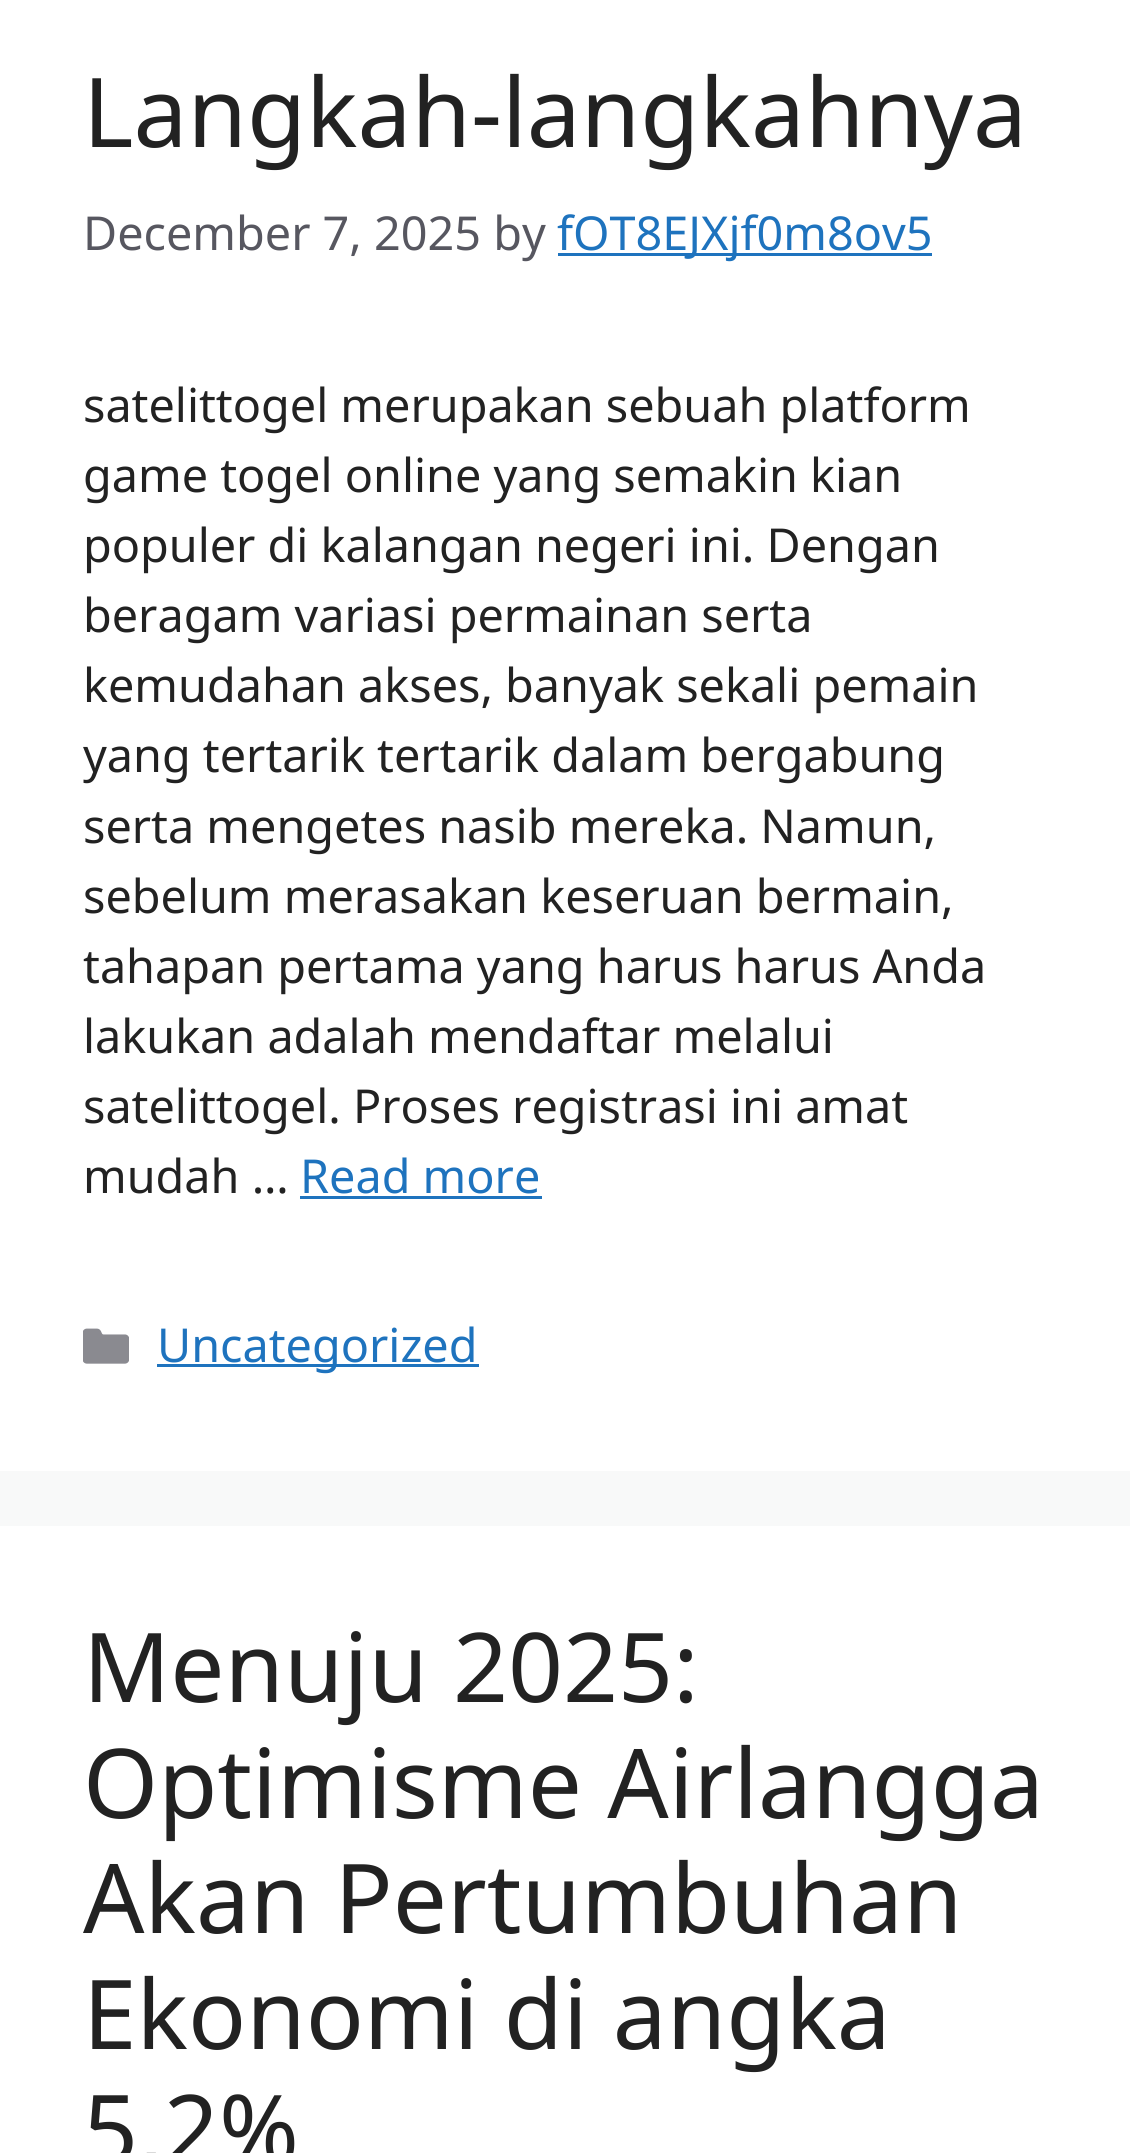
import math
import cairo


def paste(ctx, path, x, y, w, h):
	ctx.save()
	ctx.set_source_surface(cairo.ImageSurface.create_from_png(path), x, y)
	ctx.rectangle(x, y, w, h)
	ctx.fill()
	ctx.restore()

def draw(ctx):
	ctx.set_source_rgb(0.969, 0.973, 0.976)
	ctx.paint()
	ctx.set_source_rgb(1, 1, 1)
	ctx.rectangle(0, 0, 1130, 1471)
	ctx.fill()
	ctx.select_font_face('Noto Sans')
	ctx.set_font_size(96.25)
	ctx.set_source_rgb(0.133, 0.133, 0.133)
	ctx.move_to(83, 147)
	ctx.show_text('Langkah-langkahnya')
	ctx.set_font_size(46.75)
	ctx.set_source_rgb(0.341, 0.341, 0.376)
	ctx.move_to(83, 250)
	ctx.show_text('December 7, 2025 by')
	ctx.set_source_rgb(0.118, 0.451, 0.745)
	ctx.rectangle(558, 253, 374, 3)
	ctx.fill()
	ctx.move_to(557, 250)
	ctx.show_text('fOT8EJXjf0m8ov5')
	ctx.set_source_rgb(0.133, 0.133, 0.133)
	for x, y, s in [
		(83, 422, 'satelittogel merupakan sebuah platform'),
		(83, 492, 'game togel online yang semakin kian'),
		(83, 562, 'populer di kalangan negeri ini. Dengan'),
		(83, 632, 'beragam variasi permainan serta'),
		(83, 702, 'kemudahan akses, banyak sekali pemain'),
		(83, 772, 'yang tertarik tertarik dalam bergabung'),
		(83, 843, 'serta mengetes nasib mereka. Namun,'),
		(83, 913, 'sebelum merasakan keseruan bermain,'),
		(83, 983, 'tahapan pertama yang harus harus Anda'),
		(83, 1053, 'lakukan adalah mendaftar melalui'),
		(83, 1123, 'satelittogel. Proses registrasi ini amat'),
		(83, 1193, 'mudah …'),
	]:
		ctx.move_to(x, y)
		ctx.show_text(s)
	ctx.set_source_rgb(0.118, 0.451, 0.745)
	ctx.move_to(300, 1193)
	ctx.show_text('Read more')
	ctx.rectangle(300, 1196, 242, 3)
	ctx.fill()
	paste(ctx, 'media/1.png', 83, 1328, 46, 36)
	ctx.rectangle(157, 1364, 322, 3)
	ctx.fill()
	ctx.move_to(157, 1362)
	ctx.show_text('Uncategorized')
	ctx.set_source_rgb(1, 1, 1)
	ctx.rectangle(0, 1526, 1130, 627)
	ctx.fill()
	ctx.set_font_size(96.25)
	ctx.set_source_rgb(0.133, 0.133, 0.133)
	for x, y, s in [
		(83, 1702, 'Menuju 2025:'),
		(83, 1818, 'Optimisme Airlangga'),
		(83, 1933, 'Akan Pertumbuhan'),
		(83, 2049, 'Ekonomi di angka'),
		(83, 2164, '5,2%'),
	]:
		ctx.move_to(x, y)
		ctx.show_text(s)


surface = cairo.ImageSurface(cairo.FORMAT_RGB24, 1130, 2153)
ctx = cairo.Context(surface)
options = cairo.FontOptions()
options.set_hint_metrics(cairo.HINT_METRICS_OFF)
options.set_hint_style(cairo.HINT_STYLE_NONE)
ctx.set_font_options(options)
ctx.set_miter_limit(4)
draw(ctx)
surface.write_to_png('image.png')
